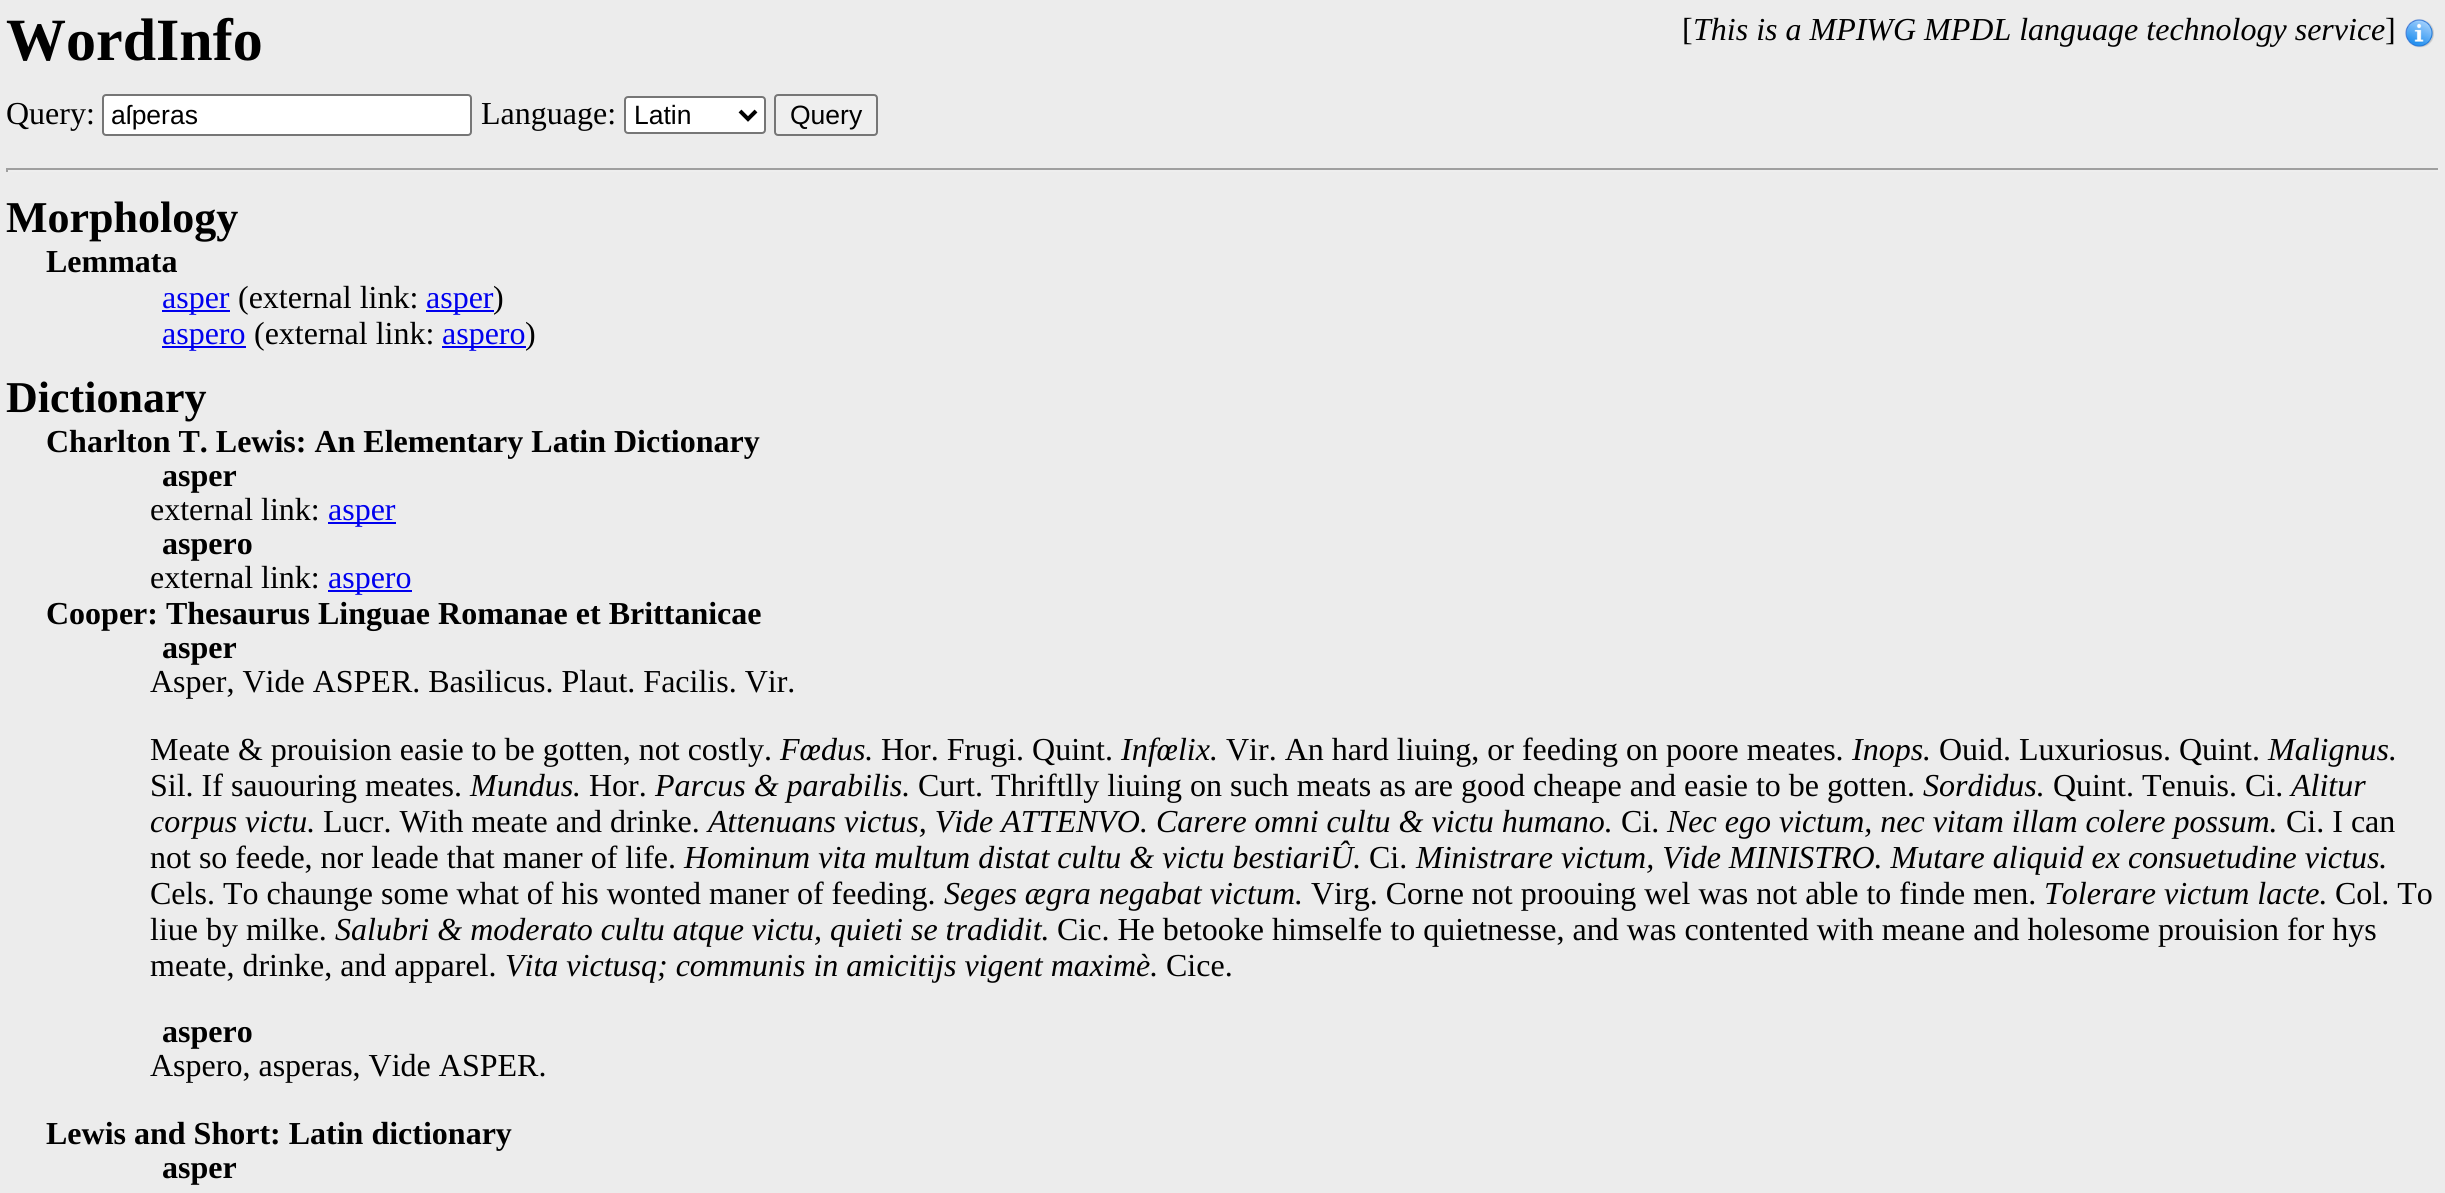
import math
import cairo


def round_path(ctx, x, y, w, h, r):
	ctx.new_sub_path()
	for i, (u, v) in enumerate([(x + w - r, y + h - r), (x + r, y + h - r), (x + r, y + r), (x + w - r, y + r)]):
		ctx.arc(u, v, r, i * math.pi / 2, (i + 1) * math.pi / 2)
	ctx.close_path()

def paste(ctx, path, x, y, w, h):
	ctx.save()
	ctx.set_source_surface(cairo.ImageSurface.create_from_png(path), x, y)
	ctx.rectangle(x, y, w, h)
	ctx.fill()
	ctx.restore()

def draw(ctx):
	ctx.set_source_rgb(0.922, 0.922, 0.922)
	ctx.paint()
	ctx.select_font_face('Liberation Serif', cairo.FONT_SLANT_NORMAL, cairo.FONT_WEIGHT_BOLD)
	ctx.set_font_size(60)
	ctx.set_source_rgb(0, 0, 0)
	ctx.move_to(6, 60)
	ctx.show_text('WordInfo')
	ctx.select_font_face('Liberation Serif')
	ctx.set_font_size(32)
	ctx.move_to(1682, 40)
	ctx.show_text('[')
	ctx.select_font_face('Liberation Serif', cairo.FONT_SLANT_ITALIC)
	ctx.move_to(1693, 40)
	ctx.show_text('This is a MPIWG MPDL language technology service')
	ctx.select_font_face('Liberation Serif')
	ctx.move_to(2385, 40)
	ctx.show_text(']')
	paste(ctx, 'media/1.png', 2405, 19, 29, 29)
	ctx.move_to(6, 124)
	ctx.show_text('Query:')
	ctx.set_source_rgb(1, 1, 1)
	round_path(ctx, 103, 95, 368, 40, 3)
	ctx.fill_preserve()
	ctx.set_source_rgb(0.463, 0.463, 0.463)
	ctx.stroke()
	ctx.select_font_face('Liberation Sans')
	ctx.set_font_size(26.5)
	ctx.set_source_rgb(0, 0, 0)
	ctx.move_to(111, 124)
	ctx.show_text('aſperas')
	ctx.select_font_face('Liberation Serif')
	ctx.set_font_size(32)
	ctx.move_to(481, 124)
	ctx.show_text('Language:')
	ctx.set_source_rgb(1, 1, 1)
	round_path(ctx, 625, 97, 140, 36, 3)
	ctx.fill_preserve()
	ctx.set_source_rgb(0.463, 0.463, 0.463)
	ctx.stroke()
	ctx.new_path()
	ctx.move_to(740, 111)
	ctx.line_to(748, 119)
	ctx.line_to(756, 111)
	ctx.set_source_rgb(0, 0, 0)
	ctx.set_line_width(4)
	ctx.stroke()
	ctx.select_font_face('Liberation Sans')
	ctx.set_font_size(26.5)
	ctx.move_to(634, 124)
	ctx.show_text('Latin')
	ctx.set_source_rgb(0.937, 0.937, 0.937)
	round_path(ctx, 775, 95, 102, 40, 3)
	ctx.fill_preserve()
	ctx.set_source_rgb(0.463, 0.463, 0.463)
	ctx.set_line_width(2)
	ctx.stroke()
	ctx.set_source_rgb(0, 0, 0)
	ctx.move_to(790, 124)
	ctx.show_text('Query')
	ctx.set_source_rgb(0.624, 0.624, 0.624)
	ctx.rectangle(6, 168, 2434, 2)
	ctx.fill()
	ctx.set_source_rgb(0.933, 0.933, 0.933)
	ctx.rectangle(2438, 168, 2, 4)
	ctx.rectangle(6, 170, 2434, 2)
	ctx.fill()
	ctx.set_source_rgb(0.624, 0.624, 0.624)
	ctx.rectangle(6, 168, 2, 4)
	ctx.fill()
	ctx.select_font_face('Liberation Serif', cairo.FONT_SLANT_NORMAL, cairo.FONT_WEIGHT_BOLD)
	ctx.set_font_size(44)
	ctx.set_source_rgb(0, 0, 0)
	ctx.move_to(6, 232)
	ctx.show_text('Morphology')
	ctx.set_font_size(32)
	ctx.move_to(46, 272)
	ctx.show_text('Lemmata')
	ctx.set_source_rgb(0, 0, 0.933)
	ctx.rectangle(162, 310, 68, 2)
	ctx.fill()
	ctx.select_font_face('Liberation Serif')
	ctx.move_to(162, 308)
	ctx.show_text('asper')
	ctx.set_source_rgb(0, 0, 0)
	ctx.move_to(238, 308)
	ctx.show_text('(external link:')
	ctx.set_source_rgb(0, 0, 0.933)
	ctx.rectangle(426, 310, 68, 2)
	ctx.fill()
	ctx.move_to(426, 308)
	ctx.show_text('asper')
	ctx.set_source_rgb(0, 0, 0)
	ctx.move_to(493, 308)
	ctx.show_text(')')
	ctx.set_source_rgb(0, 0, 0.933)
	ctx.rectangle(162, 346, 84, 2)
	ctx.fill()
	ctx.move_to(162, 344)
	ctx.show_text('aspero')
	ctx.set_source_rgb(0, 0, 0)
	ctx.move_to(254, 344)
	ctx.show_text('(external link:')
	ctx.set_source_rgb(0, 0, 0.933)
	ctx.rectangle(442, 346, 84, 2)
	ctx.fill()
	ctx.move_to(442, 344)
	ctx.show_text('aspero')
	ctx.set_source_rgb(0, 0, 0)
	ctx.move_to(525, 344)
	ctx.show_text(')')
	ctx.select_font_face('Liberation Serif', cairo.FONT_SLANT_NORMAL, cairo.FONT_WEIGHT_BOLD)
	ctx.set_font_size(44)
	ctx.move_to(6, 412)
	ctx.show_text('Dictionary')
	ctx.set_font_size(32)
	ctx.move_to(46, 452)
	ctx.show_text('Charlton T. Lewis: An Elementary Latin Dictionary')
	ctx.move_to(162, 486)
	ctx.show_text('asper')
	ctx.select_font_face('Liberation Serif')
	ctx.move_to(150, 520)
	ctx.show_text('external link:')
	ctx.set_source_rgb(0, 0, 0.933)
	ctx.rectangle(328, 522, 68, 2)
	ctx.fill()
	ctx.move_to(328, 520)
	ctx.show_text('asper')
	ctx.select_font_face('Liberation Serif', cairo.FONT_SLANT_NORMAL, cairo.FONT_WEIGHT_BOLD)
	ctx.set_source_rgb(0, 0, 0)
	ctx.move_to(162, 554)
	ctx.show_text('aspero')
	ctx.select_font_face('Liberation Serif')
	ctx.move_to(150, 588)
	ctx.show_text('external link:')
	ctx.set_source_rgb(0, 0, 0.933)
	ctx.rectangle(328, 590, 84, 2)
	ctx.fill()
	ctx.move_to(328, 588)
	ctx.show_text('aspero')
	ctx.select_font_face('Liberation Serif', cairo.FONT_SLANT_NORMAL, cairo.FONT_WEIGHT_BOLD)
	ctx.set_source_rgb(0, 0, 0)
	ctx.move_to(46, 624)
	ctx.show_text('Cooper: Thesaurus Linguae Romanae et Brittanicae')
	ctx.move_to(162, 658)
	ctx.show_text('asper')
	ctx.select_font_face('Liberation Serif')
	ctx.move_to(150, 692)
	ctx.show_text('Asper, Vide ASPER. Basilicus. Plaut. Facilis. Vir.')
	ctx.move_to(150, 760)
	ctx.show_text('Meate & prouision easie to be gotten, not costly.')
	ctx.select_font_face('Liberation Serif', cairo.FONT_SLANT_ITALIC)
	ctx.move_to(780, 760)
	ctx.show_text('Fœdus.')
	ctx.select_font_face('Liberation Serif')
	ctx.move_to(881, 760)
	ctx.show_text('Hor. Frugi. Quint.')
	ctx.select_font_face('Liberation Serif', cairo.FONT_SLANT_ITALIC)
	ctx.move_to(1121, 760)
	ctx.show_text('Infœlix.')
	ctx.select_font_face('Liberation Serif')
	ctx.move_to(1226, 760)
	ctx.show_text('Vir. An hard liuing, or feeding on poore meates.')
	ctx.select_font_face('Liberation Serif', cairo.FONT_SLANT_ITALIC)
	ctx.move_to(1852, 760)
	ctx.show_text('Inops.')
	ctx.select_font_face('Liberation Serif')
	ctx.move_to(1939, 760)
	ctx.show_text('Ouid. Luxuriosus. Quint.')
	ctx.select_font_face('Liberation Serif', cairo.FONT_SLANT_ITALIC)
	ctx.move_to(2268, 760)
	ctx.show_text('Malignus.')
	ctx.select_font_face('Liberation Serif')
	ctx.move_to(150, 796)
	ctx.show_text('Sil. If sauouring meates.')
	ctx.select_font_face('Liberation Serif', cairo.FONT_SLANT_ITALIC)
	ctx.move_to(470, 796)
	ctx.show_text('Mundus.')
	ctx.select_font_face('Liberation Serif')
	ctx.move_to(589, 796)
	ctx.show_text('Hor.')
	ctx.select_font_face('Liberation Serif', cairo.FONT_SLANT_ITALIC)
	ctx.move_to(655, 796)
	ctx.show_text('Parcus & parabilis.')
	ctx.select_font_face('Liberation Serif')
	ctx.move_to(918, 796)
	ctx.show_text('Curt. Thriftlly liuing on such meats as are good cheape and easie to be gotten.')
	ctx.select_font_face('Liberation Serif', cairo.FONT_SLANT_ITALIC)
	ctx.move_to(1923, 796)
	ctx.show_text('Sordidus.')
	ctx.select_font_face('Liberation Serif')
	ctx.move_to(2053, 796)
	ctx.show_text('Quint. Tenuis. Ci.')
	ctx.select_font_face('Liberation Serif', cairo.FONT_SLANT_ITALIC)
	ctx.move_to(2291, 796)
	ctx.show_text('Alitur')
	ctx.move_to(150, 832)
	ctx.show_text('corpus victu.')
	ctx.select_font_face('Liberation Serif')
	ctx.move_to(323, 832)
	ctx.show_text('Lucr. With meate and drinke.')
	ctx.select_font_face('Liberation Serif', cairo.FONT_SLANT_ITALIC)
	ctx.move_to(708, 832)
	ctx.show_text('Attenuans victus, Vide ATTENVO. Carere omni cultu & victu humano.')
	ctx.select_font_face('Liberation Serif')
	ctx.move_to(1621, 832)
	ctx.show_text('Ci.')
	ctx.select_font_face('Liberation Serif', cairo.FONT_SLANT_ITALIC)
	ctx.move_to(1667, 832)
	ctx.show_text('Nec ego victum, nec vitam illam colere possum.')
	ctx.select_font_face('Liberation Serif')
	ctx.move_to(2286, 832)
	ctx.show_text('Ci. I can')
	ctx.move_to(150, 868)
	ctx.show_text('not so feede, nor leade that maner of life.')
	ctx.select_font_face('Liberation Serif', cairo.FONT_SLANT_ITALIC)
	ctx.move_to(684, 868)
	ctx.show_text('Hominum vita multum distat cultu & victu bestiariÛ.')
	ctx.select_font_face('Liberation Serif')
	ctx.move_to(1369, 868)
	ctx.show_text('Ci.')
	ctx.select_font_face('Liberation Serif', cairo.FONT_SLANT_ITALIC)
	ctx.move_to(1416, 868)
	ctx.show_text('Ministrare victum, Vide MINISTRO. Mutare aliquid ex consuetudine victus.')
	ctx.select_font_face('Liberation Serif')
	ctx.move_to(150, 904)
	ctx.show_text('Cels. To chaunge some what of his wonted maner of feeding.')
	ctx.select_font_face('Liberation Serif', cairo.FONT_SLANT_ITALIC)
	ctx.move_to(944, 904)
	ctx.show_text('Seges ægra negabat victum.')
	ctx.select_font_face('Liberation Serif')
	ctx.move_to(1311, 904)
	ctx.show_text('Virg. Corne not proouing wel was not able to finde men.')
	ctx.select_font_face('Liberation Serif', cairo.FONT_SLANT_ITALIC)
	ctx.move_to(2044, 904)
	ctx.show_text('Tolerare victum lacte.')
	ctx.select_font_face('Liberation Serif')
	ctx.move_to(2335, 904)
	ctx.show_text('Col. To')
	ctx.move_to(150, 940)
	ctx.show_text('liue by milke.')
	ctx.select_font_face('Liberation Serif', cairo.FONT_SLANT_ITALIC)
	ctx.move_to(335, 940)
	ctx.show_text('Salubri & moderato cultu atque victu, quieti se tradidit.')
	ctx.select_font_face('Liberation Serif')
	ctx.move_to(1057, 940)
	ctx.show_text('Cic. He betooke himselfe to quietnesse, and was contented with meane and holesome prouision for hys')
	ctx.move_to(150, 976)
	ctx.show_text('meate, drinke, and apparel.')
	ctx.select_font_face('Liberation Serif', cairo.FONT_SLANT_ITALIC)
	ctx.move_to(505, 976)
	ctx.show_text('Vita victusq; communis in amicitijs vigent maximè.')
	ctx.select_font_face('Liberation Serif')
	ctx.move_to(1166, 976)
	ctx.show_text('Cice.')
	ctx.select_font_face('Liberation Serif', cairo.FONT_SLANT_NORMAL, cairo.FONT_WEIGHT_BOLD)
	ctx.move_to(162, 1042)
	ctx.show_text('aspero')
	ctx.select_font_face('Liberation Serif')
	ctx.move_to(150, 1076)
	ctx.show_text('Aspero, asperas, Vide ASPER.')
	ctx.select_font_face('Liberation Serif', cairo.FONT_SLANT_NORMAL, cairo.FONT_WEIGHT_BOLD)
	ctx.move_to(46, 1144)
	ctx.show_text('Lewis and Short: Latin dictionary')
	ctx.move_to(162, 1178)
	ctx.show_text('asper')


surface = cairo.ImageSurface(cairo.FORMAT_RGB24, 2445, 1193)
ctx = cairo.Context(surface)
options = cairo.FontOptions()
options.set_hint_metrics(cairo.HINT_METRICS_OFF)
options.set_hint_style(cairo.HINT_STYLE_NONE)
ctx.set_font_options(options)
ctx.set_miter_limit(4)
draw(ctx)
surface.write_to_png('image.png')
